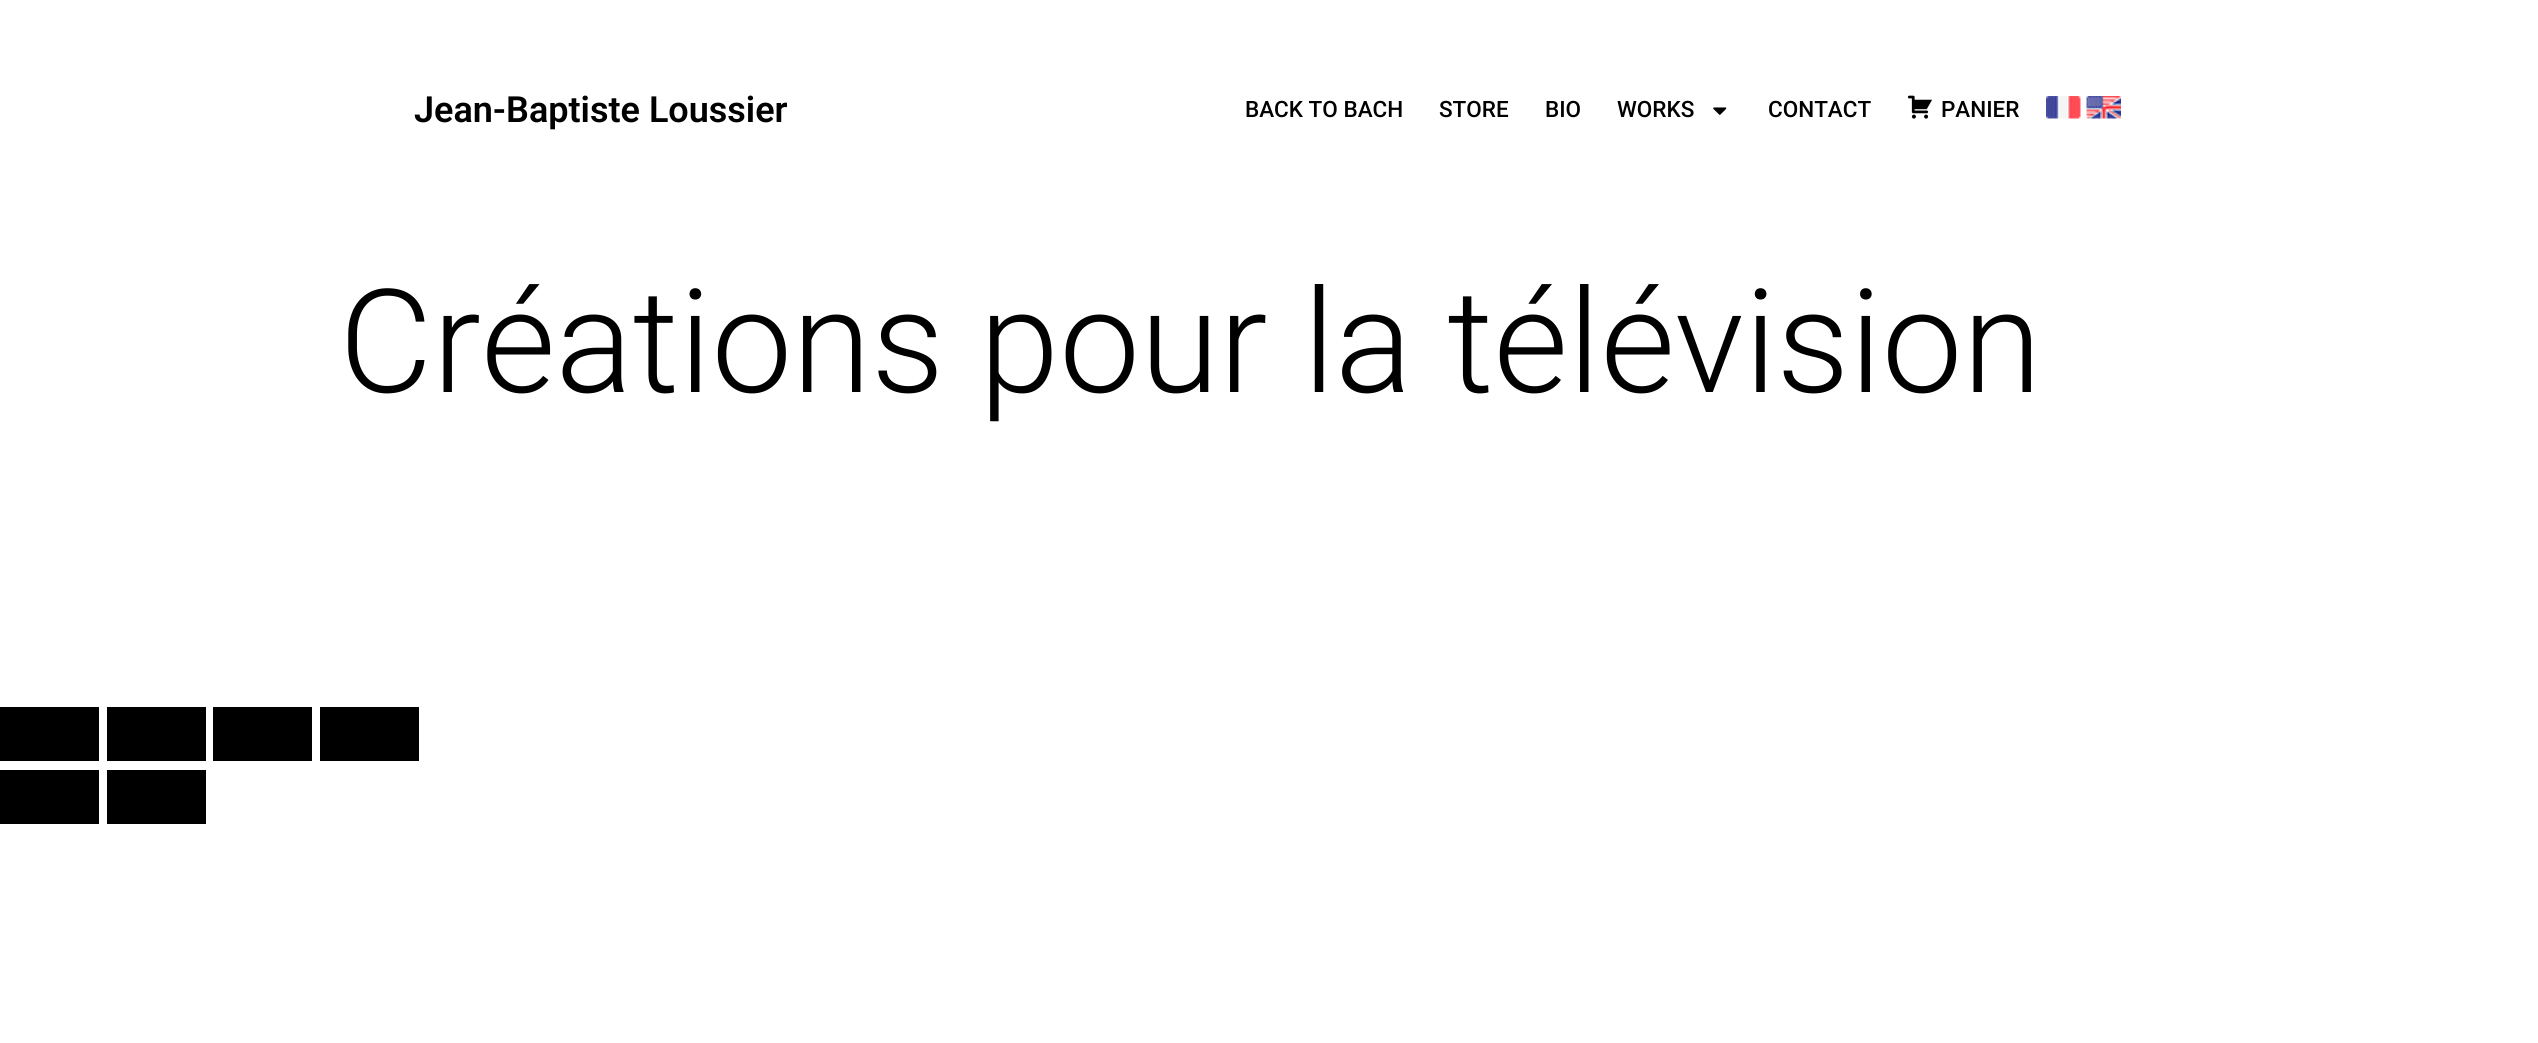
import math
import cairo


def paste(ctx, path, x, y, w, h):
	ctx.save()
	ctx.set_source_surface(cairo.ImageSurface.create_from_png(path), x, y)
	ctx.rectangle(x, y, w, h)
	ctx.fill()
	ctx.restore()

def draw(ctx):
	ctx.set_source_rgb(1, 1, 1)
	ctx.paint()
	ctx.select_font_face('Roboto SemiBold')
	ctx.set_font_size(36)
	ctx.set_source_rgb(0, 0, 0)
	ctx.move_to(414, 122)
	ctx.show_text('Jean-Baptiste Loussier')
	ctx.select_font_face('Roboto Medium')
	ctx.set_font_size(22.5)
	for x, y, s in [
		(1245, 117, 'BACK TO BACH'),
		(1439, 117, 'STORE'),
		(1545, 117, 'BIO'),
		(1617, 117, 'WORKS'),
	]:
		ctx.move_to(x, y)
		ctx.show_text(s)
	paste(ctx, 'media/1.png', 1713, 107, 14, 8)
	ctx.move_to(1768, 117)
	ctx.show_text('CONTACT')
	paste(ctx, 'media/2.png', 1907, 95, 25, 24)
	ctx.move_to(1941, 117)
	ctx.show_text('PANIER')
	paste(ctx, 'media/3.png', 2046, 96, 35, 23)
	paste(ctx, 'media/4.png', 2086, 96, 35, 23)
	ctx.select_font_face('Roboto Light')
	ctx.set_font_size(144)
	ctx.move_to(339, 392)
	ctx.show_text('Créations pour la télévision')
	ctx.rectangle(0, 707, 99, 54)
	ctx.rectangle(107, 707, 99, 54)
	ctx.rectangle(213, 707, 99, 54)
	ctx.rectangle(320, 707, 99, 54)
	ctx.rectangle(0, 770, 99, 54)
	ctx.rectangle(107, 770, 99, 54)
	ctx.fill()


surface = cairo.ImageSurface(cairo.FORMAT_RGB24, 2538, 1043)
ctx = cairo.Context(surface)
options = cairo.FontOptions()
options.set_hint_metrics(cairo.HINT_METRICS_OFF)
options.set_hint_style(cairo.HINT_STYLE_NONE)
ctx.set_font_options(options)
ctx.set_miter_limit(4)
draw(ctx)
surface.write_to_png('image.png')
